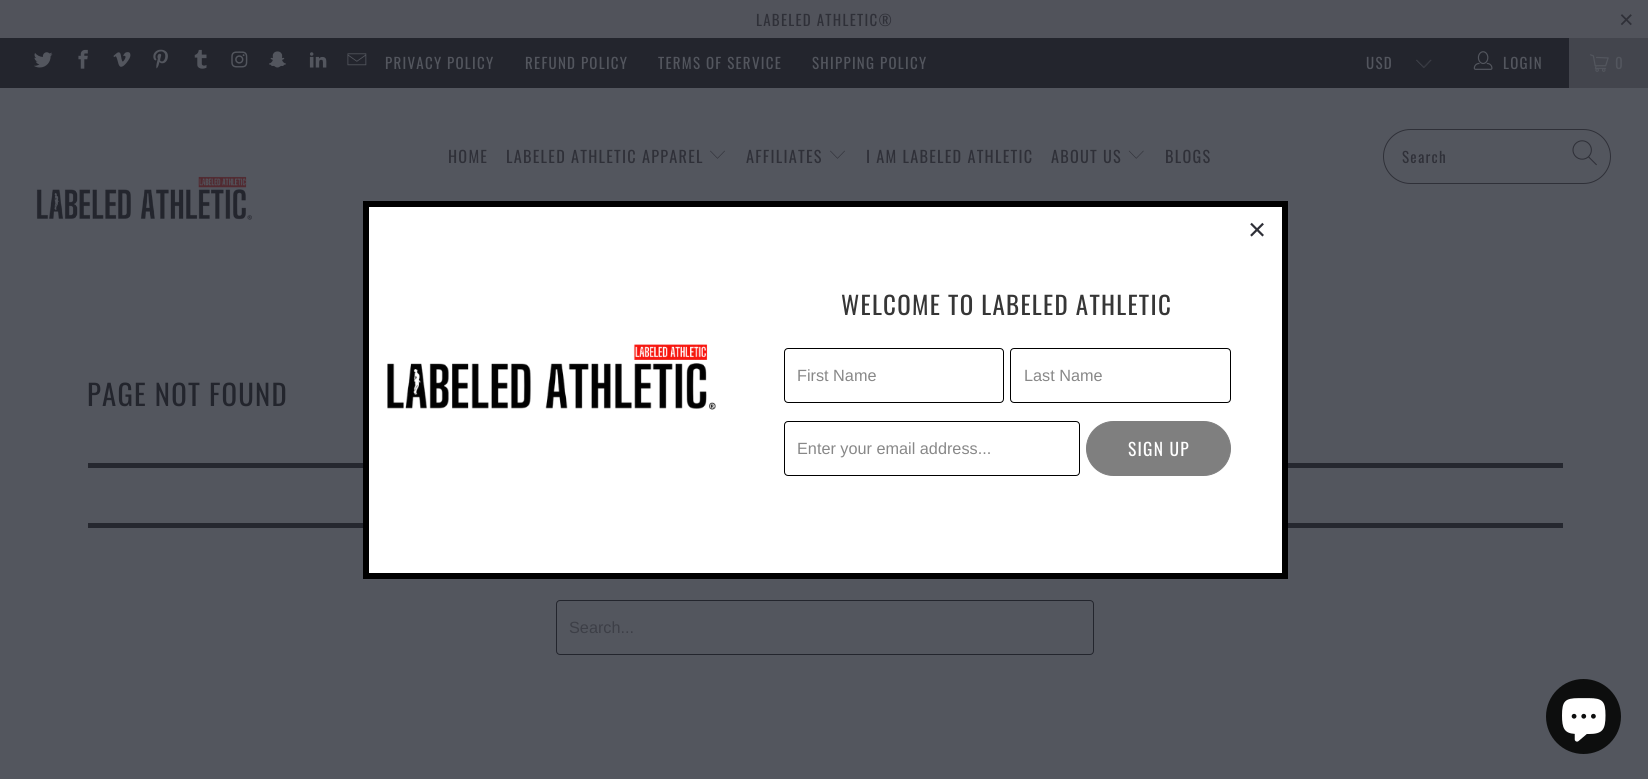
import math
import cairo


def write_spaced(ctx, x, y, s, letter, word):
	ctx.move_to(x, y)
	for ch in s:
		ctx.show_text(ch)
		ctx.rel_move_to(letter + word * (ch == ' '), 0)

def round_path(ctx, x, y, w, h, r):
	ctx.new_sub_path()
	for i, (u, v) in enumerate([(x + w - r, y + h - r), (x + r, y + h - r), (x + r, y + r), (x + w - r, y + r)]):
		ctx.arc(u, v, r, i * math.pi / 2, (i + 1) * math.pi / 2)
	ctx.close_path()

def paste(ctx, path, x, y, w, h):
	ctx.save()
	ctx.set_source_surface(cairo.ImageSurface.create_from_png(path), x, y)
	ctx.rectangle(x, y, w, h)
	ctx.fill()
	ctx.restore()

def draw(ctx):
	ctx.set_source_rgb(0.325, 0.337, 0.369)
	ctx.paint()
	ctx.set_source_rgb(0.318, 0.325, 0.357)
	ctx.rectangle(0, 0, 1648, 38)
	ctx.fill()
	ctx.select_font_face('Oswald')
	ctx.set_font_size(15)
	ctx.set_source_rgb(0.184, 0.188, 0.22)
	write_spaced(ctx, 756, 26, 'LABELED ATHLETIC®', 1.25, 0)
	ctx.select_font_face('Liberation Sans')
	ctx.set_font_size(25)
	write_spaced(ctx, 1619, 28, '×', 1.25, 0)
	ctx.set_source_rgb(0.137, 0.145, 0.176)
	ctx.rectangle(0, 38, 1569, 50)
	ctx.fill()
	paste(ctx, 'media/1.png', 34, 52, 19, 16)
	paste(ctx, 'media/2.png', 78, 49, 10, 20)
	paste(ctx, 'media/3.png', 113, 52, 18, 15)
	paste(ctx, 'media/4.png', 153, 49, 15, 20)
	paste(ctx, 'media/5.png', 194, 49, 13, 20)
	paste(ctx, 'media/6.png', 231, 51, 17, 17)
	paste(ctx, 'media/7.png', 269, 51, 17, 17)
	paste(ctx, 'media/8.png', 309, 52, 18, 16)
	paste(ctx, 'media/9.png', 347, 53, 20, 13)
	ctx.select_font_face('Oswald')
	ctx.set_font_size(15)
	ctx.set_source_rgb(0.325, 0.337, 0.369)
	for x, y, s in [
		(385, 69, 'PRIVACY POLICY'),
		(525, 69, 'REFUND POLICY'),
		(658, 69, 'TERMS OF SERVICE'),
		(812, 69, 'SHIPPING POLICY'),
	]:
		write_spaced(ctx, x, y, s, 1.25, 0)
	paste(ctx, 'media/10.png', 1416, 59, 16, 10)
	write_spaced(ctx, 1366, 69, 'USD', 1.25, 0)
	paste(ctx, 'media/11.png', 1473, 51, 20, 19)
	write_spaced(ctx, 1503, 69, 'LOGIN', 1.25, 0)
	ctx.set_source_rgb(0.263, 0.271, 0.302)
	ctx.rectangle(1569, 38, 79, 50)
	ctx.fill()
	paste(ctx, 'media/12.png', 1590, 54, 19, 18)
	ctx.set_source_rgb(0.325, 0.337, 0.369)
	write_spaced(ctx, 1615, 69, '0', 1.25, 0)
	ctx.set_font_size(16.25)
	ctx.set_source_rgb(0.184, 0.188, 0.22)
	write_spaced(ctx, 448, 163, 'HOME', 1.25, 0)
	write_spaced(ctx, 506, 163, 'LABELED ATHLETIC APPAREL', 1.25, 0)
	paste(ctx, 'media/13.png', 710, 150, 15, 9)
	write_spaced(ctx, 746, 163, 'AFFILIATES', 1.25, 0)
	paste(ctx, 'media/13.png', 830, 150, 15, 9)
	write_spaced(ctx, 866, 163, 'I AM LABELED ATHLETIC', 1.25, 0)
	write_spaced(ctx, 1051, 163, 'ABOUT US', 1.25, 0)
	paste(ctx, 'media/14.png', 1128, 150, 16, 9)
	write_spaced(ctx, 1165, 163, 'BLOGS', 1.25, 0)
	round_path(ctx, 1383.5, 129.5, 227, 54, 27)
	ctx.set_line_width(1)
	ctx.stroke()
	ctx.set_font_size(15)
	write_spaced(ctx, 1402, 163, 'Search', 1.25, 0)
	paste(ctx, 'media/15.png', 1572, 140, 25, 26)
	paste(ctx, 'media/16.png', 36, 176, 216, 44)
	ctx.set_source_rgb(0.145, 0.153, 0.184)
	ctx.rectangle(88, 463, 1475, 5)
	ctx.fill()
	ctx.rectangle(88, 523, 1475, 5)
	ctx.fill()
	ctx.set_source_rgb(1, 1, 1)
	ctx.rectangle(366, 204, 919, 372)
	ctx.fill_preserve()
	ctx.set_source_rgb(0, 0, 0)
	ctx.set_line_width(6)
	ctx.stroke()
	ctx.select_font_face('Liberation Sans')
	ctx.set_font_size(31)
	ctx.set_source_rgb(0.184, 0.188, 0.22)
	write_spaced(ctx, 1248, 240, '×', 1.25, 0)
	paste(ctx, 'media/17.png', 387, 344, 329, 66)
	ctx.select_font_face('Oswald')
	ctx.set_font_size(25)
	ctx.set_source_rgb(0.212, 0.212, 0.212)
	write_spaced(ctx, 841, 315, 'WELCOME TO LABELED ATHLETIC', 1.25, 0)
	round_path(ctx, 784.5, 348.5, 219, 54, 3.5)
	ctx.set_source_rgb(0, 0, 0)
	ctx.set_line_width(1)
	ctx.stroke()
	ctx.select_font_face('Liberation Sans')
	ctx.set_font_size(16.25)
	ctx.set_source_rgb(0.533, 0.533, 0.533)
	ctx.move_to(797, 381)
	ctx.show_text('First Name')
	round_path(ctx, 1010.5, 348.5, 220, 54, 3.5)
	ctx.set_source_rgb(0, 0, 0)
	ctx.stroke()
	ctx.set_source_rgb(0.533, 0.533, 0.533)
	ctx.move_to(1024, 381)
	ctx.show_text('Last Name')
	round_path(ctx, 784.5, 421.5, 295, 54, 3.5)
	ctx.set_source_rgb(0, 0, 0)
	ctx.stroke()
	ctx.set_source_rgb(0.533, 0.533, 0.533)
	ctx.move_to(797, 454)
	ctx.show_text('Enter your email address...')
	ctx.set_source_rgb(0.498, 0.498, 0.498)
	round_path(ctx, 1086.5, 421.5, 144, 54, 27)
	ctx.fill_preserve()
	ctx.stroke()
	ctx.select_font_face('Oswald')
	ctx.set_font_size(17.5)
	ctx.set_source_rgb(1, 1, 1)
	write_spaced(ctx, 1128, 456, 'SIGN UP', 1.25, 0)
	ctx.set_font_size(28.75)
	ctx.set_source_rgb(0.137, 0.145, 0.176)
	write_spaced(ctx, 87, 406, 'PAGE NOT FOUND', 1.25, 0)
	round_path(ctx, 556.5, 600.5, 537, 54, 3.5)
	ctx.stroke()
	ctx.select_font_face('Liberation Sans')
	ctx.set_font_size(16.25)
	ctx.set_source_rgb(0.239, 0.247, 0.278)
	ctx.move_to(569, 633)
	ctx.show_text('Search...')
	ctx.set_source_rgb(0.051, 0.055, 0.055)
	ctx.new_path()
	ctx.arc(1583.5, 716.5, 37.5, 0, 2 * math.pi)
	ctx.fill()
	paste(ctx, 'media/18.png', 1562, 698, 44, 44)


surface = cairo.ImageSurface(cairo.FORMAT_RGB24, 1648, 779)
ctx = cairo.Context(surface)
options = cairo.FontOptions()
options.set_hint_metrics(cairo.HINT_METRICS_OFF)
options.set_hint_style(cairo.HINT_STYLE_NONE)
ctx.set_font_options(options)
ctx.set_miter_limit(4)
draw(ctx)
surface.write_to_png('image.png')
